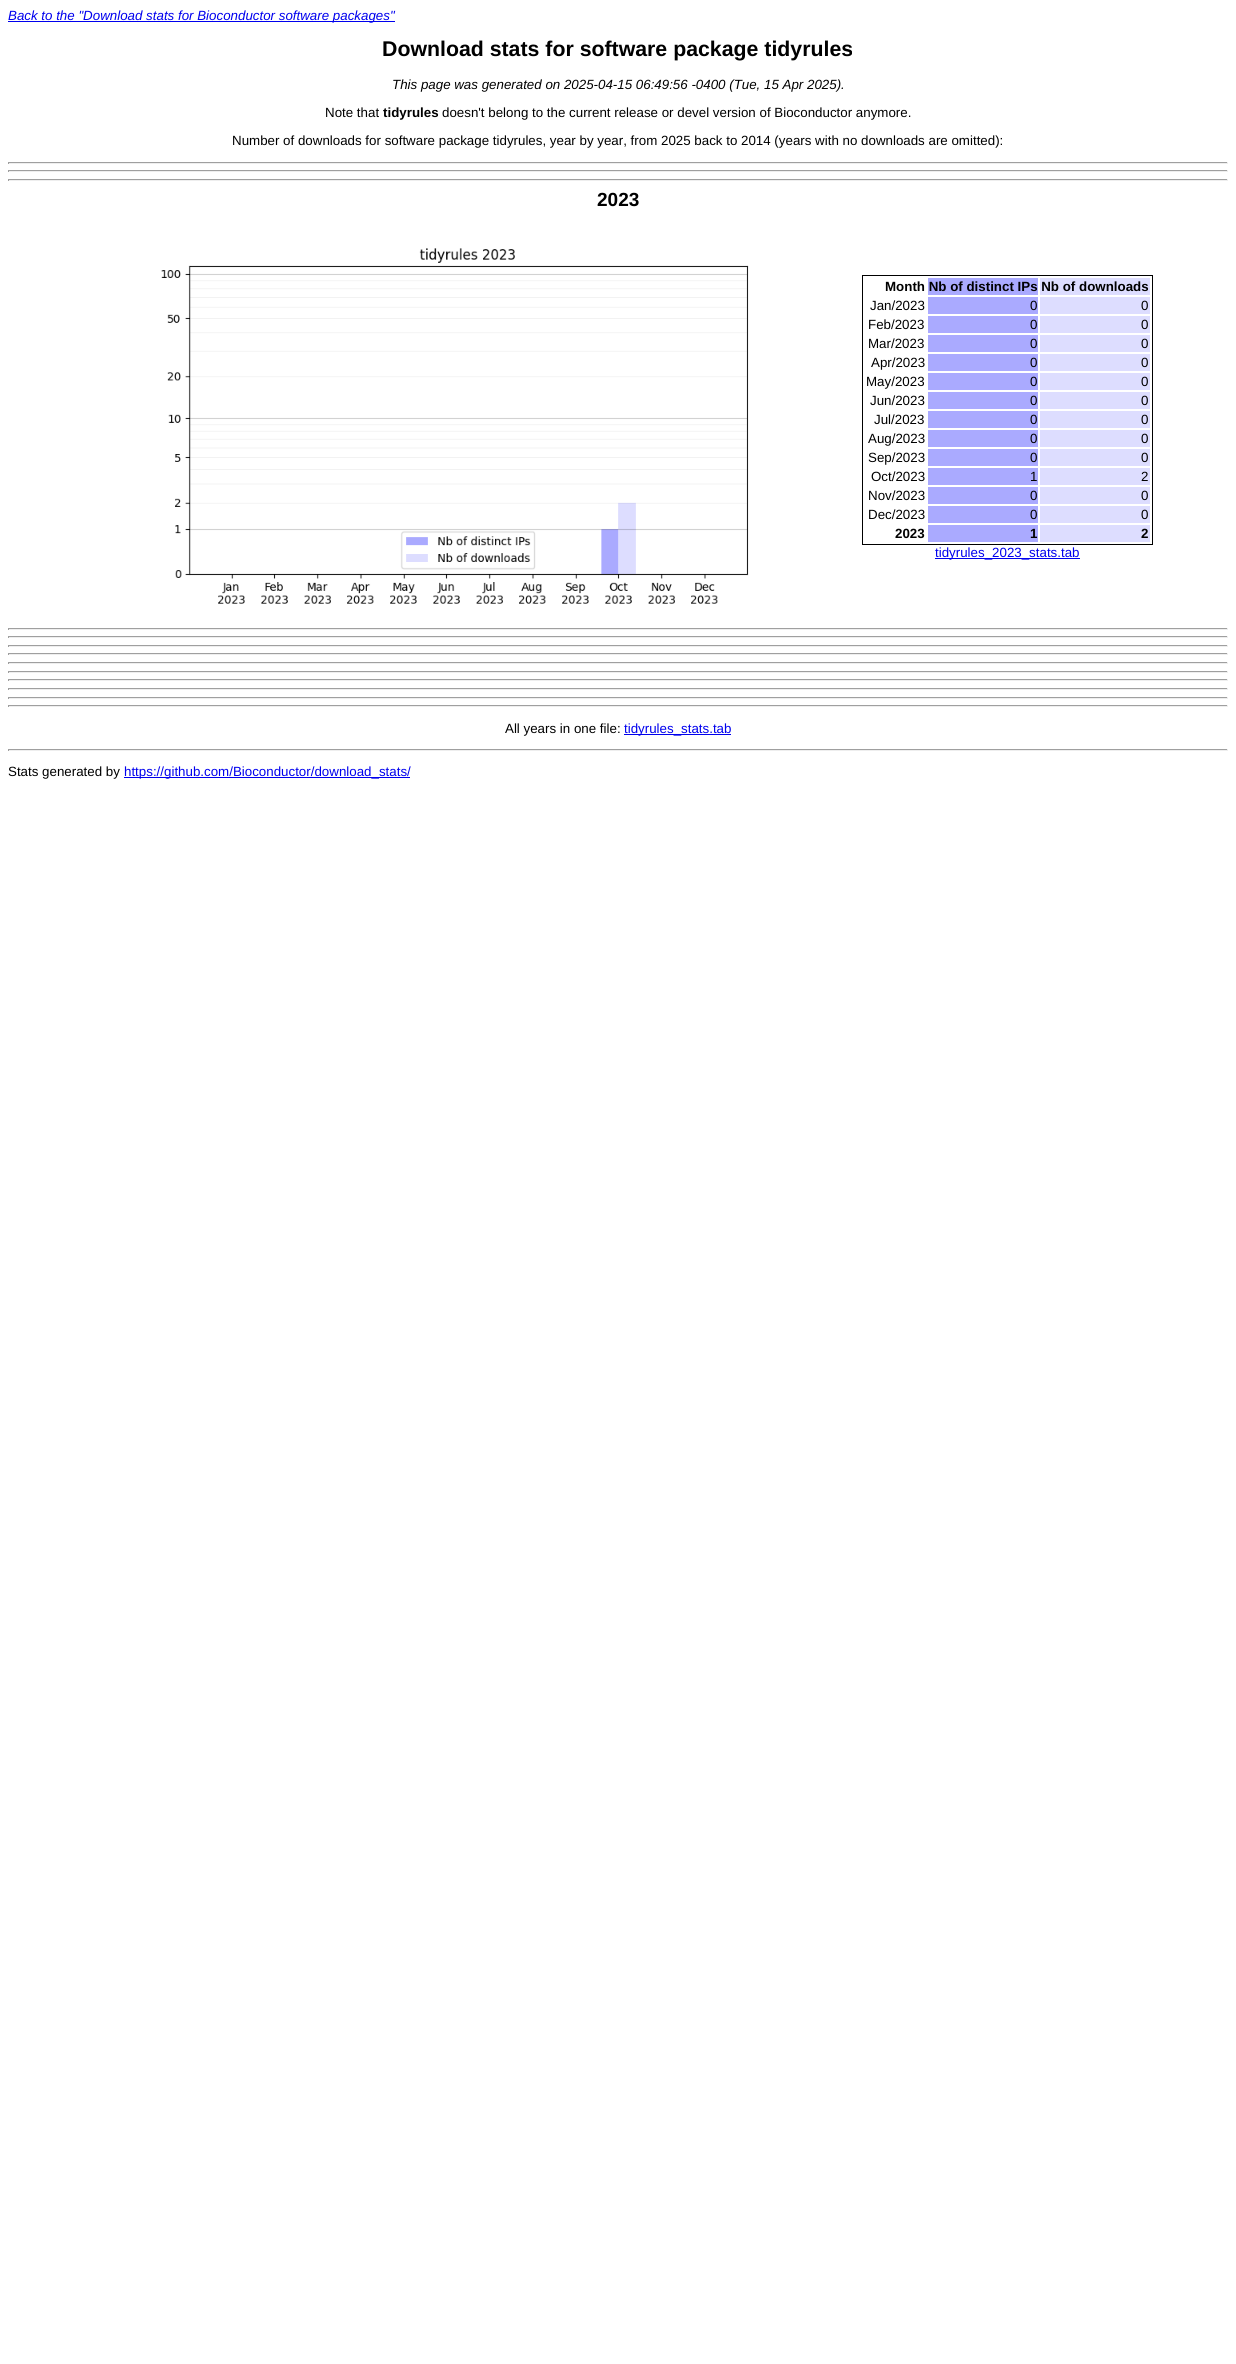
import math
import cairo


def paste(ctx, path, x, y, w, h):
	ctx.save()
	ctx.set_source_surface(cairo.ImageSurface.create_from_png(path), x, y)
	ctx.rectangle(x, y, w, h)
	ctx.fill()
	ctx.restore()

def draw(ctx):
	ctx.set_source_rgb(1, 1, 1)
	ctx.paint()
	ctx.set_source_rgb(0, 0, 0.933)
	ctx.rectangle(8, 21, 387, 1)
	ctx.fill()
	ctx.select_font_face('Liberation Sans', cairo.FONT_SLANT_ITALIC)
	ctx.set_font_size(13.33)
	ctx.move_to(8, 20)
	ctx.show_text('Back to the "Download stats for Bioconductor software packages"')
	ctx.select_font_face('Liberation Sans', cairo.FONT_SLANT_NORMAL, cairo.FONT_WEIGHT_BOLD)
	ctx.set_font_size(21.3)
	ctx.set_source_rgb(0, 0, 0)
	ctx.move_to(382, 56)
	ctx.show_text('Download stats for software package tidyrules')
	ctx.select_font_face('Liberation Sans', cairo.FONT_SLANT_ITALIC)
	ctx.set_font_size(13.33)
	ctx.move_to(392, 89)
	ctx.show_text('This page was generated on 2025-04-15 06:49:56 -0400 (Tue, 15 Apr 2025).')
	ctx.select_font_face('Liberation Sans')
	ctx.move_to(325, 117)
	ctx.show_text('Note that')
	ctx.select_font_face('Liberation Sans', cairo.FONT_SLANT_NORMAL, cairo.FONT_WEIGHT_BOLD)
	ctx.move_to(383, 117)
	ctx.show_text('tidyrules')
	ctx.select_font_face('Liberation Sans')
	ctx.move_to(442, 117)
	ctx.show_text('doesn\'t belong to the current release or devel version of Bioconductor anymore.')
	ctx.move_to(232, 145)
	ctx.show_text('Number of downloads for software package tidyrules, year by year, from 2025 back to 2014 (years with no downloads are omitted):')
	ctx.set_source_rgb(0.624, 0.624, 0.624)
	ctx.rectangle(8, 162, 1220, 1)
	ctx.fill()
	ctx.set_source_rgb(0.933, 0.933, 0.933)
	ctx.rectangle(1227, 162, 1, 2)
	ctx.rectangle(8, 163, 1220, 1)
	ctx.fill()
	ctx.set_source_rgb(0.624, 0.624, 0.624)
	ctx.rectangle(8, 162, 1, 2)
	ctx.rectangle(8, 170, 1220, 1)
	ctx.fill()
	ctx.set_source_rgb(0.933, 0.933, 0.933)
	ctx.rectangle(1227, 170, 1, 2)
	ctx.rectangle(8, 171, 1220, 1)
	ctx.fill()
	ctx.set_source_rgb(0.624, 0.624, 0.624)
	ctx.rectangle(8, 170, 1, 2)
	ctx.rectangle(8, 179, 1220, 1)
	ctx.fill()
	ctx.set_source_rgb(0.933, 0.933, 0.933)
	ctx.rectangle(1227, 179, 1, 2)
	ctx.rectangle(8, 180, 1220, 1)
	ctx.fill()
	ctx.set_source_rgb(0.624, 0.624, 0.624)
	ctx.rectangle(8, 179, 1, 2)
	ctx.fill()
	ctx.select_font_face('Liberation Sans', cairo.FONT_SLANT_NORMAL, cairo.FONT_WEIGHT_BOLD)
	ctx.set_font_size(19)
	ctx.set_source_rgb(0, 0, 0)
	ctx.move_to(597, 206)
	ctx.show_text('2023')
	paste(ctx, 'media/1.png', 161, 248, 588, 356)
	ctx.rectangle(862.5, 275.5, 290, 269)
	ctx.set_line_width(1)
	ctx.stroke()
	ctx.set_source_rgb(0.667, 0.667, 1)
	ctx.rectangle(928, 278, 110, 17)
	ctx.fill()
	ctx.set_source_rgb(0.867, 0.867, 1)
	ctx.rectangle(1040, 278, 110, 17)
	ctx.fill()
	ctx.set_font_size(13.33)
	ctx.set_source_rgb(0, 0, 0)
	ctx.move_to(885, 291)
	ctx.show_text('Month Nb of distinct IPs Nb of downloads')
	ctx.select_font_face('Liberation Sans')
	ctx.move_to(870, 310)
	ctx.show_text('Jan/2023')
	ctx.set_source_rgb(0.667, 0.667, 1)
	ctx.rectangle(928, 297, 110, 17)
	ctx.fill()
	ctx.set_source_rgb(0, 0, 0)
	ctx.move_to(1030, 310)
	ctx.show_text('0')
	ctx.set_source_rgb(0.867, 0.867, 1)
	ctx.rectangle(1040, 297, 110, 17)
	ctx.fill()
	ctx.set_source_rgb(0, 0, 0)
	ctx.move_to(1141, 310)
	ctx.show_text('0')
	ctx.move_to(868, 329)
	ctx.show_text('Feb/2023')
	ctx.set_source_rgb(0.667, 0.667, 1)
	ctx.rectangle(928, 316, 110, 17)
	ctx.fill()
	ctx.set_source_rgb(0, 0, 0)
	ctx.move_to(1030, 329)
	ctx.show_text('0')
	ctx.set_source_rgb(0.867, 0.867, 1)
	ctx.rectangle(1040, 316, 110, 17)
	ctx.fill()
	ctx.set_source_rgb(0, 0, 0)
	ctx.move_to(1141, 329)
	ctx.show_text('0')
	ctx.move_to(868, 348)
	ctx.show_text('Mar/2023')
	ctx.set_source_rgb(0.667, 0.667, 1)
	ctx.rectangle(928, 335, 110, 17)
	ctx.fill()
	ctx.set_source_rgb(0, 0, 0)
	ctx.move_to(1030, 348)
	ctx.show_text('0')
	ctx.set_source_rgb(0.867, 0.867, 1)
	ctx.rectangle(1040, 335, 110, 17)
	ctx.fill()
	ctx.set_source_rgb(0, 0, 0)
	ctx.move_to(1141, 348)
	ctx.show_text('0')
	ctx.move_to(871, 367)
	ctx.show_text('Apr/2023')
	ctx.set_source_rgb(0.667, 0.667, 1)
	ctx.rectangle(928, 354, 110, 17)
	ctx.fill()
	ctx.set_source_rgb(0, 0, 0)
	ctx.move_to(1030, 367)
	ctx.show_text('0')
	ctx.set_source_rgb(0.867, 0.867, 1)
	ctx.rectangle(1040, 354, 110, 17)
	ctx.fill()
	ctx.set_source_rgb(0, 0, 0)
	ctx.move_to(1141, 367)
	ctx.show_text('0')
	ctx.move_to(866, 386)
	ctx.show_text('May/2023')
	ctx.set_source_rgb(0.667, 0.667, 1)
	ctx.rectangle(928, 373, 110, 17)
	ctx.fill()
	ctx.set_source_rgb(0, 0, 0)
	ctx.move_to(1030, 386)
	ctx.show_text('0')
	ctx.set_source_rgb(0.867, 0.867, 1)
	ctx.rectangle(1040, 373, 110, 17)
	ctx.fill()
	ctx.set_source_rgb(0, 0, 0)
	ctx.move_to(1141, 386)
	ctx.show_text('0')
	ctx.move_to(870, 405)
	ctx.show_text('Jun/2023')
	ctx.set_source_rgb(0.667, 0.667, 1)
	ctx.rectangle(928, 392, 110, 17)
	ctx.fill()
	ctx.set_source_rgb(0, 0, 0)
	ctx.move_to(1030, 405)
	ctx.show_text('0')
	ctx.set_source_rgb(0.867, 0.867, 1)
	ctx.rectangle(1040, 392, 110, 17)
	ctx.fill()
	ctx.set_source_rgb(0, 0, 0)
	ctx.move_to(1141, 405)
	ctx.show_text('0')
	ctx.move_to(874, 424)
	ctx.show_text('Jul/2023')
	ctx.set_source_rgb(0.667, 0.667, 1)
	ctx.rectangle(928, 411, 110, 17)
	ctx.fill()
	ctx.set_source_rgb(0, 0, 0)
	ctx.move_to(1030, 424)
	ctx.show_text('0')
	ctx.set_source_rgb(0.867, 0.867, 1)
	ctx.rectangle(1040, 411, 110, 17)
	ctx.fill()
	ctx.set_source_rgb(0, 0, 0)
	ctx.move_to(1141, 424)
	ctx.show_text('0')
	ctx.move_to(868, 443)
	ctx.show_text('Aug/2023')
	ctx.set_source_rgb(0.667, 0.667, 1)
	ctx.rectangle(928, 430, 110, 17)
	ctx.fill()
	ctx.set_source_rgb(0, 0, 0)
	ctx.move_to(1030, 443)
	ctx.show_text('0')
	ctx.set_source_rgb(0.867, 0.867, 1)
	ctx.rectangle(1040, 430, 110, 17)
	ctx.fill()
	ctx.set_source_rgb(0, 0, 0)
	ctx.move_to(1141, 443)
	ctx.show_text('0')
	ctx.move_to(868, 462)
	ctx.show_text('Sep/2023')
	ctx.set_source_rgb(0.667, 0.667, 1)
	ctx.rectangle(928, 449, 110, 17)
	ctx.fill()
	ctx.set_source_rgb(0, 0, 0)
	ctx.move_to(1030, 462)
	ctx.show_text('0')
	ctx.set_source_rgb(0.867, 0.867, 1)
	ctx.rectangle(1040, 449, 110, 17)
	ctx.fill()
	ctx.set_source_rgb(0, 0, 0)
	ctx.move_to(1141, 462)
	ctx.show_text('0')
	ctx.move_to(871, 481)
	ctx.show_text('Oct/2023')
	ctx.set_source_rgb(0.667, 0.667, 1)
	ctx.rectangle(928, 468, 110, 17)
	ctx.fill()
	ctx.set_source_rgb(0, 0, 0)
	ctx.move_to(1030, 481)
	ctx.show_text('1')
	ctx.set_source_rgb(0.867, 0.867, 1)
	ctx.rectangle(1040, 468, 110, 17)
	ctx.fill()
	ctx.set_source_rgb(0, 0, 0)
	ctx.move_to(1141, 481)
	ctx.show_text('2')
	ctx.move_to(868, 500)
	ctx.show_text('Nov/2023')
	ctx.set_source_rgb(0.667, 0.667, 1)
	ctx.rectangle(928, 487, 110, 17)
	ctx.fill()
	ctx.set_source_rgb(0, 0, 0)
	ctx.move_to(1030, 500)
	ctx.show_text('0')
	ctx.set_source_rgb(0.867, 0.867, 1)
	ctx.rectangle(1040, 487, 110, 17)
	ctx.fill()
	ctx.set_source_rgb(0, 0, 0)
	ctx.move_to(1141, 500)
	ctx.show_text('0')
	ctx.move_to(868, 519)
	ctx.show_text('Dec/2023')
	ctx.set_source_rgb(0.667, 0.667, 1)
	ctx.rectangle(928, 506, 110, 17)
	ctx.fill()
	ctx.set_source_rgb(0, 0, 0)
	ctx.move_to(1030, 519)
	ctx.show_text('0')
	ctx.set_source_rgb(0.867, 0.867, 1)
	ctx.rectangle(1040, 506, 110, 17)
	ctx.fill()
	ctx.set_source_rgb(0, 0, 0)
	ctx.move_to(1141, 519)
	ctx.show_text('0')
	ctx.select_font_face('Liberation Sans', cairo.FONT_SLANT_NORMAL, cairo.FONT_WEIGHT_BOLD)
	ctx.move_to(895, 538)
	ctx.show_text('2023')
	ctx.set_source_rgb(0.667, 0.667, 1)
	ctx.rectangle(928, 525, 110, 17)
	ctx.fill()
	ctx.set_source_rgb(0, 0, 0)
	ctx.move_to(1030, 538)
	ctx.show_text('1')
	ctx.set_source_rgb(0.867, 0.867, 1)
	ctx.rectangle(1040, 525, 110, 17)
	ctx.fill()
	ctx.set_source_rgb(0, 0, 0)
	ctx.move_to(1141, 538)
	ctx.show_text('2')
	ctx.set_source_rgb(0, 0, 0.933)
	ctx.rectangle(935, 558, 145, 1)
	ctx.fill()
	ctx.select_font_face('Liberation Sans')
	ctx.move_to(935, 557)
	ctx.show_text('tidyrules_2023_stats.tab')
	ctx.set_source_rgb(0.624, 0.624, 0.624)
	ctx.rectangle(8, 628, 1220, 1)
	ctx.fill()
	ctx.set_source_rgb(0.933, 0.933, 0.933)
	ctx.rectangle(1227, 628, 1, 2)
	ctx.rectangle(8, 629, 1220, 1)
	ctx.fill()
	ctx.set_source_rgb(0.624, 0.624, 0.624)
	ctx.rectangle(8, 628, 1, 2)
	ctx.rectangle(8, 636, 1220, 1)
	ctx.fill()
	ctx.set_source_rgb(0.933, 0.933, 0.933)
	ctx.rectangle(1227, 636, 1, 2)
	ctx.rectangle(8, 637, 1220, 1)
	ctx.fill()
	ctx.set_source_rgb(0.624, 0.624, 0.624)
	ctx.rectangle(8, 636, 1, 2)
	ctx.rectangle(8, 645, 1220, 1)
	ctx.fill()
	ctx.set_source_rgb(0.933, 0.933, 0.933)
	ctx.rectangle(1227, 645, 1, 2)
	ctx.rectangle(8, 646, 1220, 1)
	ctx.fill()
	ctx.set_source_rgb(0.624, 0.624, 0.624)
	ctx.rectangle(8, 645, 1, 2)
	ctx.rectangle(8, 653, 1220, 1)
	ctx.fill()
	ctx.set_source_rgb(0.933, 0.933, 0.933)
	ctx.rectangle(1227, 653, 1, 2)
	ctx.rectangle(8, 654, 1220, 1)
	ctx.fill()
	ctx.set_source_rgb(0.624, 0.624, 0.624)
	ctx.rectangle(8, 653, 1, 2)
	ctx.rectangle(8, 662, 1220, 1)
	ctx.fill()
	ctx.set_source_rgb(0.933, 0.933, 0.933)
	ctx.rectangle(1227, 662, 1, 2)
	ctx.rectangle(8, 663, 1220, 1)
	ctx.fill()
	ctx.set_source_rgb(0.624, 0.624, 0.624)
	ctx.rectangle(8, 662, 1, 2)
	ctx.rectangle(8, 671, 1220, 1)
	ctx.fill()
	ctx.set_source_rgb(0.933, 0.933, 0.933)
	ctx.rectangle(1227, 671, 1, 2)
	ctx.rectangle(8, 672, 1220, 1)
	ctx.fill()
	ctx.set_source_rgb(0.624, 0.624, 0.624)
	ctx.rectangle(8, 671, 1, 2)
	ctx.rectangle(8, 679, 1220, 1)
	ctx.fill()
	ctx.set_source_rgb(0.933, 0.933, 0.933)
	ctx.rectangle(1227, 679, 1, 2)
	ctx.rectangle(8, 680, 1220, 1)
	ctx.fill()
	ctx.set_source_rgb(0.624, 0.624, 0.624)
	ctx.rectangle(8, 679, 1, 2)
	ctx.rectangle(8, 688, 1220, 1)
	ctx.fill()
	ctx.set_source_rgb(0.933, 0.933, 0.933)
	ctx.rectangle(1227, 688, 1, 2)
	ctx.rectangle(8, 689, 1220, 1)
	ctx.fill()
	ctx.set_source_rgb(0.624, 0.624, 0.624)
	ctx.rectangle(8, 688, 1, 2)
	ctx.rectangle(8, 697, 1220, 1)
	ctx.fill()
	ctx.set_source_rgb(0.933, 0.933, 0.933)
	ctx.rectangle(1227, 697, 1, 2)
	ctx.rectangle(8, 698, 1220, 1)
	ctx.fill()
	ctx.set_source_rgb(0.624, 0.624, 0.624)
	ctx.rectangle(8, 697, 1, 2)
	ctx.rectangle(8, 705, 1220, 1)
	ctx.fill()
	ctx.set_source_rgb(0.933, 0.933, 0.933)
	ctx.rectangle(1227, 705, 1, 2)
	ctx.rectangle(8, 706, 1220, 1)
	ctx.fill()
	ctx.set_source_rgb(0.624, 0.624, 0.624)
	ctx.rectangle(8, 705, 1, 2)
	ctx.fill()
	ctx.set_source_rgb(0, 0, 0)
	ctx.move_to(505, 733)
	ctx.show_text('All years in one file:')
	ctx.set_source_rgb(0, 0, 0.933)
	ctx.rectangle(624, 734, 107, 1)
	ctx.fill()
	ctx.move_to(624, 733)
	ctx.show_text('tidyrules_stats.tab')
	ctx.set_source_rgb(0.624, 0.624, 0.624)
	ctx.rectangle(8, 749, 1220, 1)
	ctx.fill()
	ctx.set_source_rgb(0.933, 0.933, 0.933)
	ctx.rectangle(1227, 749, 1, 2)
	ctx.rectangle(8, 750, 1220, 1)
	ctx.fill()
	ctx.set_source_rgb(0.624, 0.624, 0.624)
	ctx.rectangle(8, 749, 1, 2)
	ctx.fill()
	ctx.set_source_rgb(0, 0, 0)
	ctx.move_to(8, 776)
	ctx.show_text('Stats generated by')
	ctx.set_source_rgb(0, 0, 0.933)
	ctx.rectangle(124, 777, 286, 1)
	ctx.fill()
	ctx.move_to(124, 776)
	ctx.show_text('https://github.com/Bioconductor/download_stats/')


surface = cairo.ImageSurface(cairo.FORMAT_RGB24, 1236, 2364)
ctx = cairo.Context(surface)
options = cairo.FontOptions()
options.set_hint_metrics(cairo.HINT_METRICS_OFF)
options.set_hint_style(cairo.HINT_STYLE_NONE)
ctx.set_font_options(options)
ctx.set_miter_limit(4)
draw(ctx)
surface.write_to_png('image.png')
